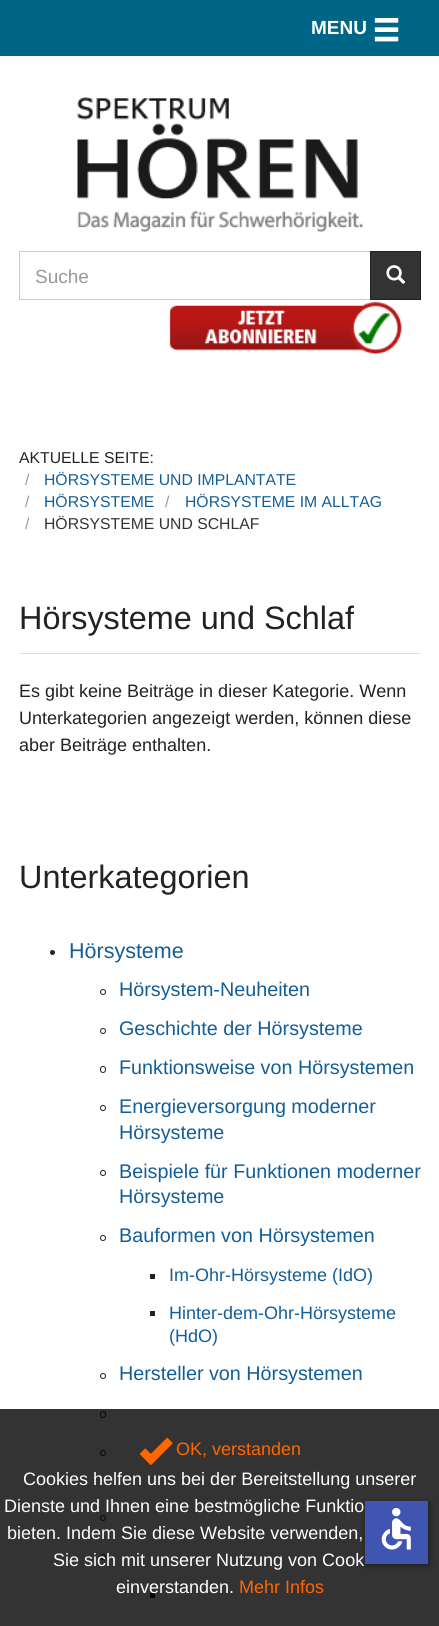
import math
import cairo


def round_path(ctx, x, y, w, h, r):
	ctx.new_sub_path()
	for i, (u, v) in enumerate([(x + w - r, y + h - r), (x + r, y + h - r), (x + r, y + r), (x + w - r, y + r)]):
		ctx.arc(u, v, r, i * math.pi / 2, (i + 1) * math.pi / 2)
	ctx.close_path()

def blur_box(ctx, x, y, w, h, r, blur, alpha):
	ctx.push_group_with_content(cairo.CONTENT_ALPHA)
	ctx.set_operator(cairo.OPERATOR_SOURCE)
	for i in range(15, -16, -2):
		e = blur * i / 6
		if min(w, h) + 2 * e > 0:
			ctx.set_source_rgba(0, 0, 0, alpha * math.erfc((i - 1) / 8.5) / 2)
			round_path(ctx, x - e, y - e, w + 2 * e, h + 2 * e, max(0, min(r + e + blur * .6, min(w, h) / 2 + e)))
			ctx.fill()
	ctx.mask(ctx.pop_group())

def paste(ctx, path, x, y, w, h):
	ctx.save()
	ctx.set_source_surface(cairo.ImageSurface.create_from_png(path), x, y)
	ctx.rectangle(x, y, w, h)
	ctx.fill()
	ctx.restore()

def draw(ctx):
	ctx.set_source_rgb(1, 1, 1)
	ctx.paint()
	ctx.set_source_rgb(0, 0.4, 0.529)
	ctx.rectangle(0, 0, 439, 56)
	ctx.fill()
	ctx.select_font_face('Liberation Sans', cairo.FONT_SLANT_NORMAL, cairo.FONT_WEIGHT_BOLD)
	ctx.set_font_size(19)
	ctx.set_source_rgb(1, 1, 1)
	ctx.move_to(311, 34)
	ctx.show_text('MENU')
	paste(ctx, 'media/1.png', 374, 18, 25, 24)
	paste(ctx, 'media/2.png', 77, 97, 286, 135)
	ctx.rectangle(19.5, 251.5, 351, 48)
	ctx.set_source_rgb(0.8, 0.8, 0.8)
	ctx.set_line_width(1)
	ctx.stroke()
	ctx.select_font_face('Liberation Sans')
	ctx.set_source_rgb(0.6, 0.6, 0.6)
	ctx.move_to(35, 283)
	ctx.show_text('Suche')
	ctx.set_source_rgb(0.2, 0.2, 0.2)
	ctx.rectangle(370.5, 251.5, 50, 48)
	ctx.fill_preserve()
	ctx.set_source_rgb(0.129, 0.129, 0.129)
	ctx.stroke()
	paste(ctx, 'media/3.png', 386, 265, 20, 19)
	paste(ctx, 'media/4.png', 169, 301, 233, 54)
	ctx.set_font_size(15.75)
	ctx.set_source_rgb(0.133, 0.133, 0.133)
	ctx.move_to(19, 463)
	ctx.show_text('AKTUELLE SEITE:')
	ctx.set_source_rgb(0.6, 0.6, 0.6)
	ctx.move_to(25, 485)
	ctx.show_text('/')
	ctx.set_source_rgb(0.078, 0.369, 0.596)
	ctx.move_to(44, 485)
	ctx.show_text('HÖRSYSTEME UND IMPLANTATE')
	ctx.set_source_rgb(0.6, 0.6, 0.6)
	ctx.move_to(25, 507)
	ctx.show_text('/')
	ctx.set_source_rgb(0.078, 0.369, 0.596)
	ctx.move_to(44, 507)
	ctx.show_text('HÖRSYSTEME')
	ctx.set_source_rgb(0.6, 0.6, 0.6)
	ctx.move_to(165, 507)
	ctx.show_text('/')
	ctx.set_source_rgb(0.078, 0.369, 0.596)
	ctx.move_to(185, 507)
	ctx.show_text('HÖRSYSTEME IM ALLTAG')
	ctx.set_source_rgb(0.6, 0.6, 0.6)
	ctx.move_to(25, 529)
	ctx.show_text('/')
	ctx.set_source_rgb(0.2, 0.2, 0.2)
	ctx.move_to(44, 529)
	ctx.show_text('HÖRSYSTEME UND SCHLAF')
	ctx.set_source_rgb(0.867, 0.867, 0.867)
	ctx.rectangle(19, 653, 402, 1)
	ctx.fill()
	ctx.set_font_size(32.4)
	ctx.set_source_rgb(0.133, 0.133, 0.133)
	ctx.move_to(19, 629)
	ctx.show_text('Hörsysteme und Schlaf')
	ctx.set_font_size(18)
	for x, y, s in [
		(19, 697, 'Es gibt keine Beiträge in dieser Kategorie. Wenn'),
		(19, 724, 'Unterkategorien angezeigt werden, können diese'),
		(19, 751, 'aber Beiträge enthalten.'),
	]:
		ctx.move_to(x, y)
		ctx.show_text(s)
	ctx.set_font_size(32.4)
	ctx.move_to(19, 888)
	ctx.show_text('Unterkategorien')
	ctx.new_path()
	ctx.arc(52.5, 952.5, 2.5, 0, 2 * math.pi)
	ctx.fill()
	ctx.set_font_size(21.5)
	ctx.set_source_rgb(0.078, 0.369, 0.596)
	ctx.move_to(69, 958)
	ctx.show_text('Hörsysteme')
	ctx.new_path()
	ctx.arc(103, 992, 2.5, 0, 2 * math.pi)
	ctx.set_source_rgb(0.133, 0.133, 0.133)
	ctx.stroke()
	ctx.set_font_size(19.75)
	ctx.set_source_rgb(0.078, 0.369, 0.596)
	ctx.move_to(119, 996)
	ctx.show_text('Hörsystem-Neuheiten')
	ctx.new_path()
	ctx.arc(103, 1031, 2.5, 0, 2 * math.pi)
	ctx.set_source_rgb(0.133, 0.133, 0.133)
	ctx.stroke()
	ctx.set_source_rgb(0.078, 0.369, 0.596)
	ctx.move_to(119, 1035)
	ctx.show_text('Geschichte der Hörsysteme')
	round_path(ctx, 100.5, 1066.5, 5, 6, 2.5)
	ctx.set_source_rgb(0.133, 0.133, 0.133)
	ctx.stroke()
	ctx.set_source_rgb(0.078, 0.369, 0.596)
	ctx.move_to(119, 1074)
	ctx.show_text('Funktionsweise von Hörsystemen')
	ctx.new_path()
	ctx.arc(103, 1108, 2.5, 0, 2 * math.pi)
	ctx.set_source_rgb(0.133, 0.133, 0.133)
	ctx.stroke()
	ctx.set_source_rgb(0.078, 0.369, 0.596)
	ctx.move_to(119, 1113)
	ctx.show_text('Energieversorgung moderner')
	ctx.move_to(119, 1139)
	ctx.show_text('Hörsysteme')
	ctx.new_path()
	ctx.arc(103, 1173, 2.5, 0, 2 * math.pi)
	ctx.set_source_rgb(0.133, 0.133, 0.133)
	ctx.stroke()
	ctx.set_source_rgb(0.078, 0.369, 0.596)
	ctx.move_to(119, 1178)
	ctx.show_text('Beispiele für Funktionen moderner')
	ctx.move_to(119, 1203)
	ctx.show_text('Hörsysteme')
	ctx.new_path()
	ctx.arc(103, 1238, 2.5, 0, 2 * math.pi)
	ctx.set_source_rgb(0.133, 0.133, 0.133)
	ctx.stroke()
	ctx.set_source_rgb(0.078, 0.369, 0.596)
	ctx.move_to(119, 1242)
	ctx.show_text('Bauformen von Hörsystemen')
	ctx.set_source_rgb(0.133, 0.133, 0.133)
	ctx.rectangle(150, 1274, 5, 5)
	ctx.fill()
	ctx.set_font_size(18)
	ctx.set_source_rgb(0.078, 0.369, 0.596)
	ctx.move_to(169, 1281)
	ctx.show_text('Im-Ohr-Hörsysteme (IdO)')
	ctx.set_source_rgb(0.133, 0.133, 0.133)
	ctx.rectangle(150, 1311, 5, 5)
	ctx.fill()
	ctx.set_source_rgb(0.078, 0.369, 0.596)
	ctx.move_to(169, 1319)
	ctx.show_text('Hinter-dem-Ohr-Hörsysteme')
	ctx.move_to(169, 1342)
	ctx.show_text('(HdO)')
	ctx.new_path()
	ctx.arc(103, 1376, 2.5, 0, 2 * math.pi)
	ctx.set_source_rgb(0.133, 0.133, 0.133)
	ctx.stroke()
	ctx.set_font_size(19.75)
	ctx.set_source_rgb(0.078, 0.369, 0.596)
	ctx.move_to(119, 1380)
	ctx.show_text('Hersteller von Hörsystemen')
	round_path(ctx, 100.5, 1411.5, 5, 6, 2.5)
	ctx.set_source_rgb(0.133, 0.133, 0.133)
	ctx.stroke()
	ctx.arc(103, 1453, 2.5, 0, 2 * math.pi)
	ctx.stroke()
	ctx.arc(103, 1518, 2.5, 0, 2 * math.pi)
	ctx.stroke()
	ctx.arc(103, 1557, 2.5, 0, 2 * math.pi)
	ctx.stroke()
	ctx.rectangle(150, 1593, 5, 5)
	ctx.fill()
	ctx.set_source_rgba(0, 0, 0, 0.8)
	ctx.rectangle(0, 1409, 439, 217)
	ctx.fill()
	paste(ctx, 'media/5.png', 139, 1437, 34, 28)
	ctx.set_font_size(18)
	ctx.set_source_rgb(1, 0.4, 0)
	ctx.move_to(176, 1455)
	ctx.show_text('OK, verstanden')
	ctx.set_source_rgb(1, 1, 1)
	for x, y, s in [
		(23, 1485, 'Cookies helfen uns bei der Bereitstellung unserer'),
		(4, 1512, 'Dienste und Ihnen eine bestmögliche Funktio'),
		(7, 1539, 'bieten. Indem Sie diese Website verwenden,'),
		(53, 1566, 'Sie sich mit unserer Nutzung von Cook'),
		(116, 1593, 'einverstanden.'),
	]:
		ctx.move_to(x, y)
		ctx.show_text(s)
	ctx.set_source_rgb(1, 0.4, 0)
	ctx.move_to(239, 1593)
	ctx.show_text('Mehr Infos')
	ctx.set_source_rgb(0, 0, 0)
	blur_box(ctx, 366, 1503, 63, 62, 0, 3, 0.5)
	ctx.set_source_rgb(0.251, 0.329, 0.698)
	ctx.rectangle(365, 1501, 63, 63)
	ctx.fill()
	paste(ctx, 'media/6.png', 381, 1507, 30, 43)


surface = cairo.ImageSurface(cairo.FORMAT_RGB24, 439, 1626)
ctx = cairo.Context(surface)
options = cairo.FontOptions()
options.set_hint_metrics(cairo.HINT_METRICS_OFF)
options.set_hint_style(cairo.HINT_STYLE_NONE)
ctx.set_font_options(options)
ctx.set_miter_limit(4)
draw(ctx)
surface.write_to_png('image.png')
